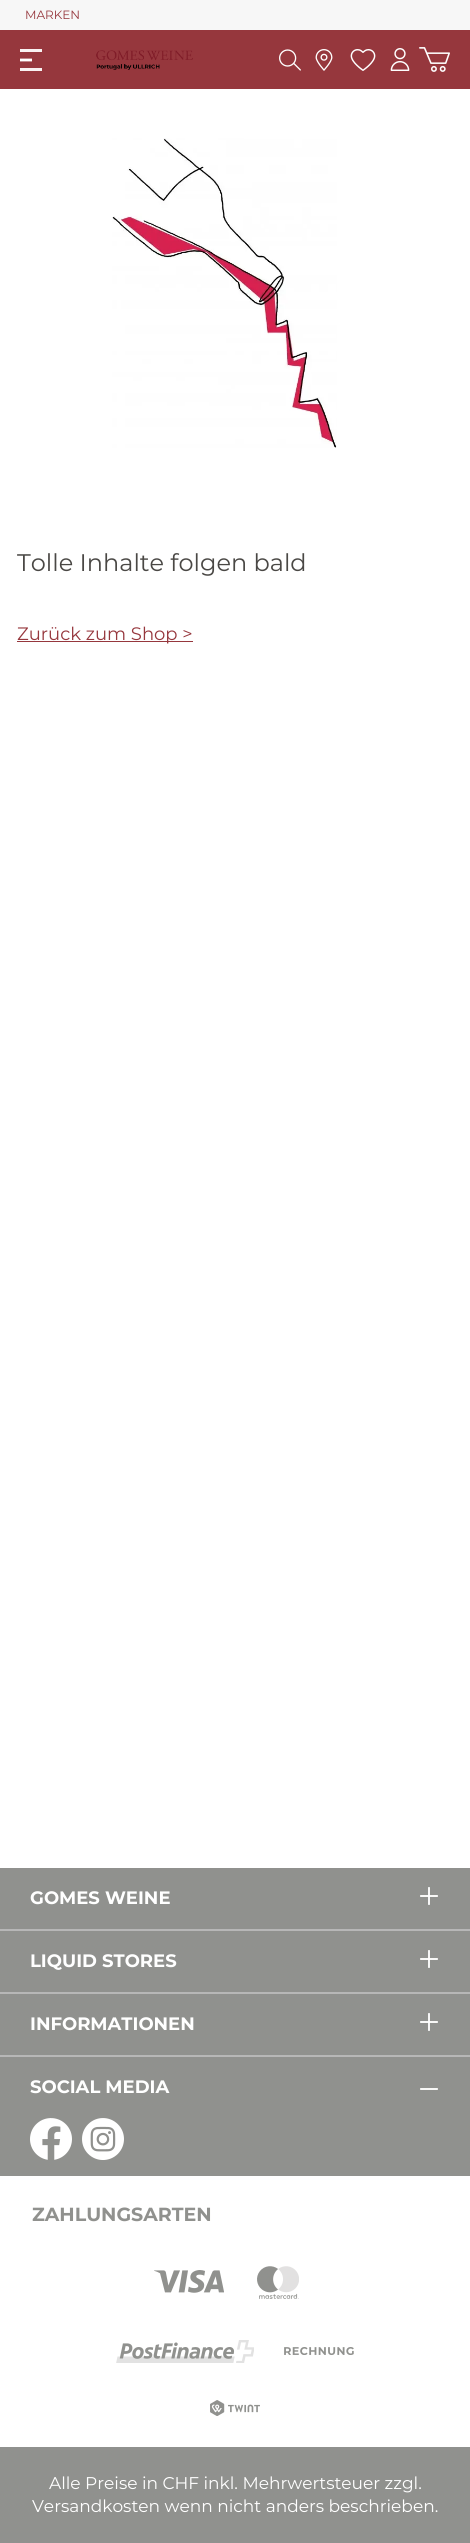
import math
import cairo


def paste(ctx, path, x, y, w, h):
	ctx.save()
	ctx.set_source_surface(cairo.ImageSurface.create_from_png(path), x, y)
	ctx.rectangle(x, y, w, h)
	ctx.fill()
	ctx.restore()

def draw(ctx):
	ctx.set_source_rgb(1, 1, 1)
	ctx.paint()
	ctx.set_source_rgb(0.965, 0.965, 0.965)
	ctx.rectangle(0, 0, 470, 30)
	ctx.fill()
	ctx.select_font_face('Montserrat')
	ctx.set_font_size(12)
	ctx.set_source_rgb(0.588, 0.216, 0.239)
	ctx.move_to(25, 19)
	ctx.show_text('MARKEN')
	ctx.rectangle(0, 30, 470, 59)
	ctx.fill()
	ctx.set_source_rgb(0.973, 0.949, 0.949)
	ctx.rectangle(20, 49, 22, 3)
	ctx.rectangle(20, 68, 22, 3)
	ctx.fill()
	ctx.new_path()
	ctx.move_to(20, 60)
	ctx.line_to(32, 60)
	ctx.set_source_rgb(1, 1, 1)
	ctx.set_line_width(2.8)
	ctx.stroke()
	paste(ctx, 'media/1.png', 96, 50, 97, 20)
	paste(ctx, 'media/2.png', 279, 49, 22, 22)
	paste(ctx, 'media/3.png', 315, 49, 18, 22)
	paste(ctx, 'media/4.png', 350, 49, 26, 22)
	paste(ctx, 'media/5.png', 390, 48, 20, 23)
	paste(ctx, 'media/6.png', 419, 47, 31, 25)
	paste(ctx, 'media/7.png', 112, 138, 225, 310)
	ctx.set_font_size(24)
	ctx.set_source_rgb(0.29, 0.282, 0.271)
	ctx.move_to(17, 571)
	ctx.show_text('Tolle Inhalte folgen bald')
	ctx.set_source_rgb(0.588, 0.216, 0.239)
	ctx.rectangle(17, 641, 176, 1)
	ctx.fill()
	ctx.set_font_size(18)
	ctx.move_to(17, 640)
	ctx.show_text('Zurück zum Shop >')
	ctx.set_source_rgb(0.565, 0.569, 0.557)
	ctx.rectangle(0, 1868, 470, 675)
	ctx.fill()
	ctx.set_source_rgb(0.718, 0.718, 0.718)
	ctx.rectangle(0, 1929, 470, 2)
	ctx.fill()
	ctx.select_font_face('Montserrat', cairo.FONT_SLANT_NORMAL, cairo.FONT_WEIGHT_BOLD)
	ctx.set_source_rgb(1, 1, 1)
	ctx.move_to(30, 1904)
	ctx.show_text('GOMES WEINE')
	paste(ctx, 'media/8.png', 420, 1887, 18, 18)
	ctx.set_source_rgb(0.718, 0.718, 0.718)
	ctx.rectangle(0, 1992, 470, 2)
	ctx.fill()
	ctx.set_source_rgb(1, 1, 1)
	ctx.move_to(30, 1967)
	ctx.show_text('LIQUID STORES')
	paste(ctx, 'media/8.png', 420, 1950, 18, 18)
	ctx.set_source_rgb(0.718, 0.718, 0.718)
	ctx.rectangle(0, 2055, 470, 2)
	ctx.fill()
	ctx.set_source_rgb(1, 1, 1)
	ctx.move_to(30, 2030)
	ctx.show_text('INFORMATIONEN')
	paste(ctx, 'media/8.png', 420, 2013, 18, 18)
	ctx.move_to(30, 2093)
	ctx.show_text('SOCIAL MEDIA')
	paste(ctx, 'media/9.png', 420, 2088, 18, 2)
	paste(ctx, 'media/10.png', 30, 2118, 42, 42)
	paste(ctx, 'media/11.png', 82, 2118, 42, 42)
	ctx.rectangle(0, 2176, 470, 271)
	ctx.fill()
	ctx.set_font_size(19)
	ctx.set_source_rgb(0.565, 0.569, 0.557)
	ctx.move_to(32, 2221)
	ctx.show_text('ZAHLUNGSARTEN')
	paste(ctx, 'media/12.png', 154, 2270, 70, 23)
	paste(ctx, 'media/13.png', 257, 2266, 42, 33)
	paste(ctx, 'media/14.png', 116, 2340, 138, 23)
	paste(ctx, 'media/15.png', 284, 2347, 70, 8)
	paste(ctx, 'media/16.png', 210, 2400, 50, 16)
	ctx.select_font_face('Montserrat')
	ctx.set_font_size(17)
	ctx.set_source_rgb(1, 1, 1)
	ctx.move_to(49, 2489)
	ctx.show_text('Alle Preise in CHF inkl. Mehrwertsteuer zzgl.')
	ctx.move_to(32, 2512)
	ctx.show_text('Versandkosten wenn nicht anders beschrieben.')


surface = cairo.ImageSurface(cairo.FORMAT_RGB24, 470, 2543)
ctx = cairo.Context(surface)
options = cairo.FontOptions()
options.set_hint_metrics(cairo.HINT_METRICS_OFF)
options.set_hint_style(cairo.HINT_STYLE_NONE)
ctx.set_font_options(options)
ctx.set_miter_limit(4)
draw(ctx)
surface.write_to_png('image.png')
